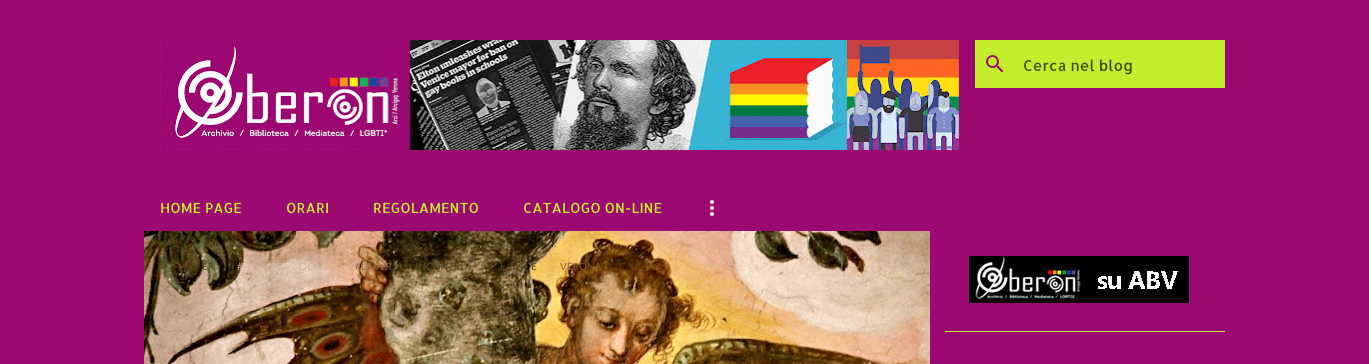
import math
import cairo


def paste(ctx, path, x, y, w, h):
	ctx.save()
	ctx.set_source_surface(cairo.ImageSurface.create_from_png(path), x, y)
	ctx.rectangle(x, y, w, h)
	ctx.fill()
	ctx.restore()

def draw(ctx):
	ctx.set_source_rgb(0.612, 0.039, 0.447)
	ctx.paint()
	paste(ctx, 'media/1.png', 160, 40, 799, 110)
	ctx.set_source_rgb(0.769, 0.933, 0.176)
	ctx.rectangle(975, 40, 250, 48)
	ctx.fill()
	paste(ctx, 'media/2.png', 986, 55, 18, 18)
	ctx.select_font_face('Allerta')
	ctx.set_font_size(15)
	ctx.set_source_rgb(0.263, 0.318, 0.059)
	ctx.move_to(1023, 71)
	ctx.show_text('Cerca nel blog')
	ctx.set_font_size(14)
	ctx.set_source_rgb(0.769, 0.933, 0.176)
	for x, y, s in [
		(160, 213, 'HOME PAGE'),
		(286, 213, 'ORARI'),
		(373, 213, 'REGOLAMENTO'),
		(523, 213, 'CATALOGO ON-LINE'),
	]:
		ctx.move_to(x, y)
		ctx.show_text(s)
	paste(ctx, 'media/3.png', 710, 200, 4, 16)
	paste(ctx, 'media/4.png', 144, 231, 786, 133)
	ctx.select_font_face('Lato')
	ctx.set_font_size(10)
	ctx.set_source_rgb(0.337, 0.286, 0.145)
	ctx.move_to(202, 270)
	ctx.show_text('ER')
	ctx.set_source_rgb(0.816, 0.694, 0.596)
	ctx.move_to(237, 270)
	ctx.show_text('#')
	ctx.move_to(299, 270)
	ctx.show_text('OL')
	ctx.set_source_rgb(0.584, 0.404, 0.251)
	ctx.move_to(355, 270)
	ctx.show_text('#UNIVR')
	ctx.set_source_rgb(0.361, 0.29, 0.149)
	ctx.move_to(415, 270)
	ctx.show_text('INCONTRI')
	ctx.set_source_rgb(0.337, 0.286, 0.145)
	ctx.move_to(500, 270)
	ctx.show_text('L')
	ctx.move_to(531, 270)
	ctx.show_text('E')
	ctx.set_source_rgb(0.529, 0.357, 0.141)
	ctx.move_to(560, 270)
	ctx.show_text('VERONA')
	paste(ctx, 'media/5.png', 969, 256, 220, 47)
	ctx.set_source_rgb(0.769, 0.933, 0.176)
	ctx.rectangle(945, 331, 280, 1)
	ctx.fill()


surface = cairo.ImageSurface(cairo.FORMAT_RGB24, 1369, 364)
ctx = cairo.Context(surface)
options = cairo.FontOptions()
options.set_hint_metrics(cairo.HINT_METRICS_OFF)
options.set_hint_style(cairo.HINT_STYLE_NONE)
ctx.set_font_options(options)
ctx.set_miter_limit(4)
draw(ctx)
surface.write_to_png('image.png')
